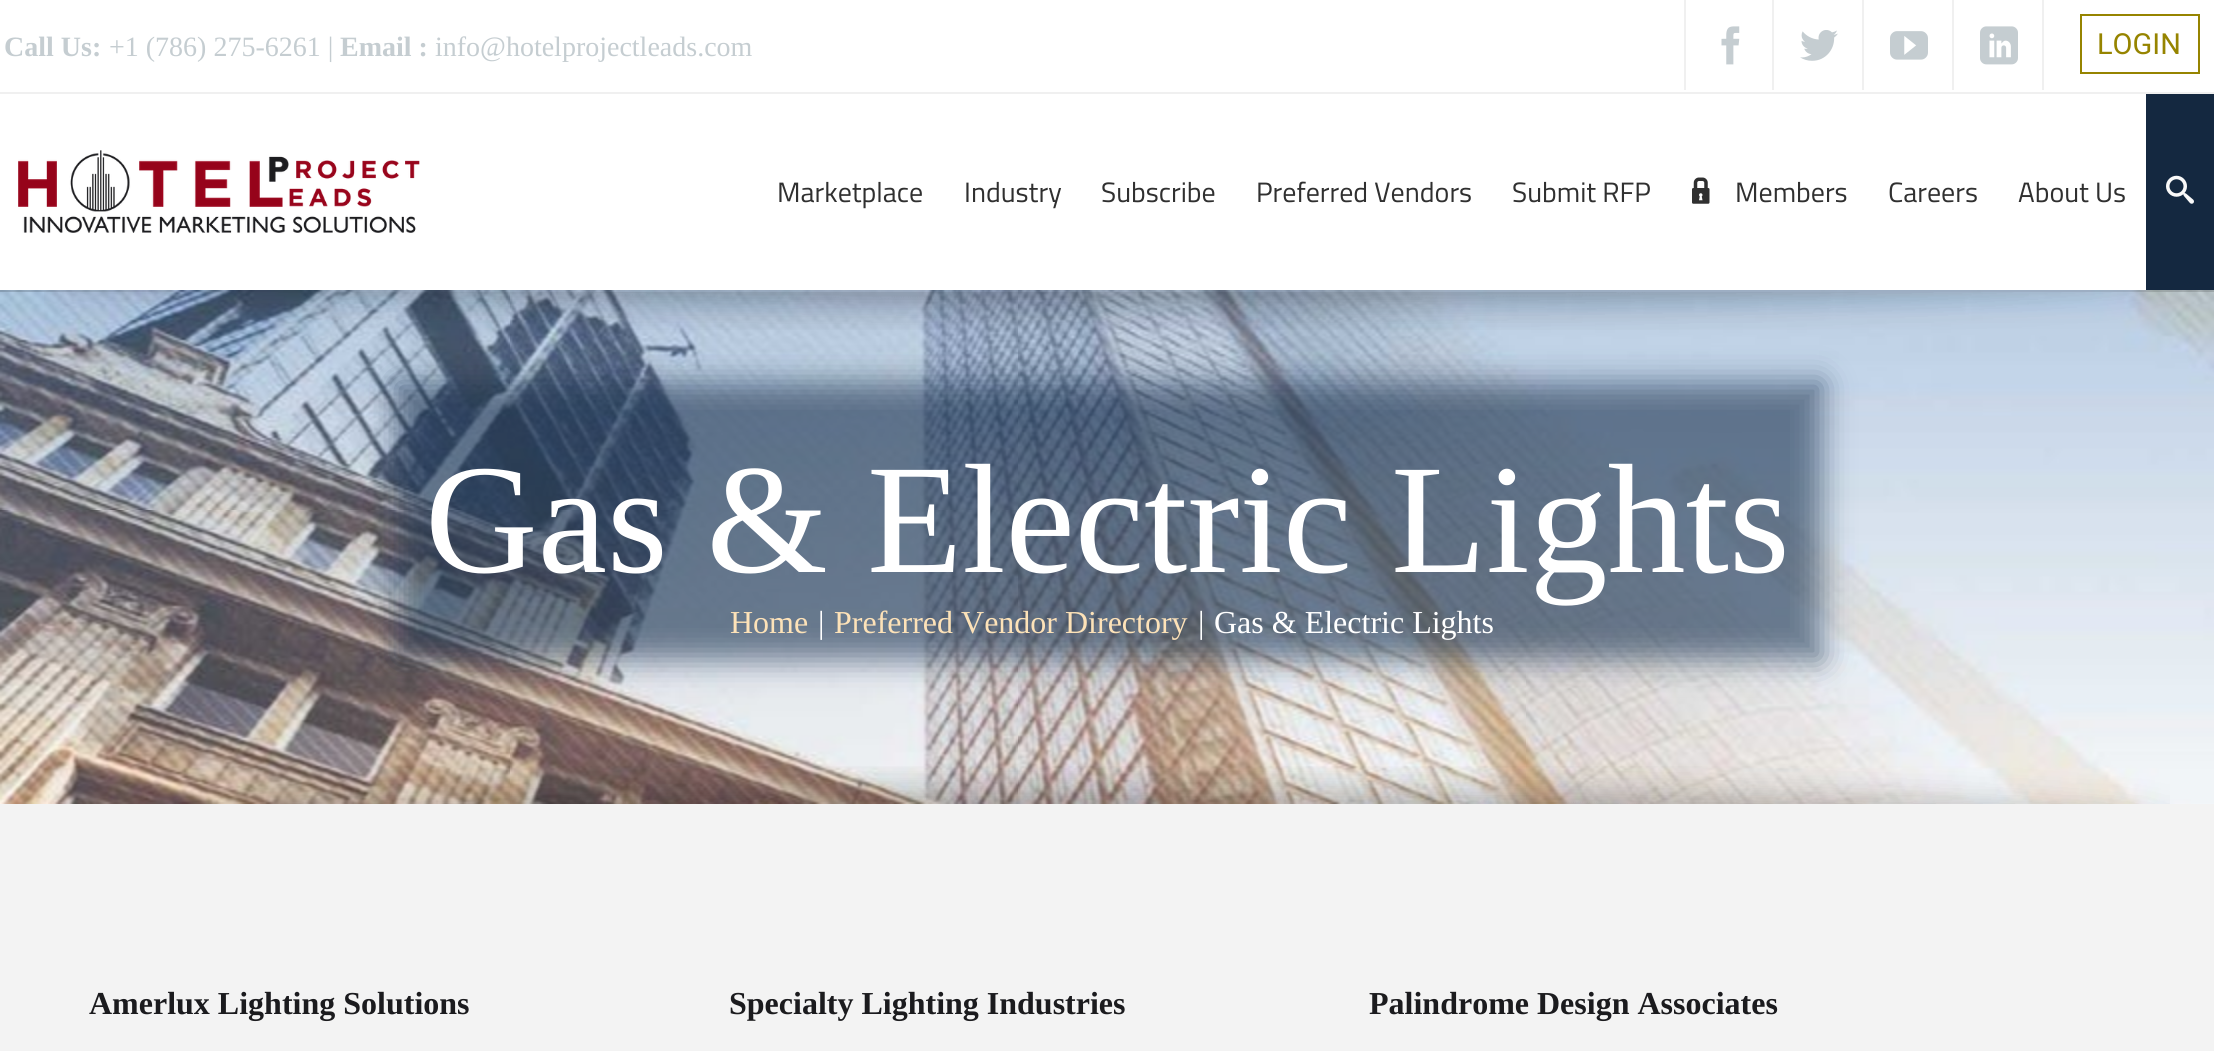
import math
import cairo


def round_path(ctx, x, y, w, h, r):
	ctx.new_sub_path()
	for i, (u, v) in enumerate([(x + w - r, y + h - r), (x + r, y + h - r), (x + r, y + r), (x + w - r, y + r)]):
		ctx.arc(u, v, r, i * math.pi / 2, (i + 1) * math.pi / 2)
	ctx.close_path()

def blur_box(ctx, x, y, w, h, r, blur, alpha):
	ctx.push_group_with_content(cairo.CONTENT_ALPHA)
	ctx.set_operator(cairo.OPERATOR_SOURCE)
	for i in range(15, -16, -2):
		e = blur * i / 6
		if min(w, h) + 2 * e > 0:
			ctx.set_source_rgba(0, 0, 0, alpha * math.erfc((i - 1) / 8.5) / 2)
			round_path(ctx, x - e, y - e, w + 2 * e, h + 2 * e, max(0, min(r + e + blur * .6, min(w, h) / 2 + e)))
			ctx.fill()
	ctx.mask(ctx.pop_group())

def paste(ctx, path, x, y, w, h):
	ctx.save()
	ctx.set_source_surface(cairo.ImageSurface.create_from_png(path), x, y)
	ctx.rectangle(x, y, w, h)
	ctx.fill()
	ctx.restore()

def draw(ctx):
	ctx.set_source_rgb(0.953, 0.953, 0.953)
	ctx.paint()
	ctx.set_source_rgb(1, 1, 1)
	ctx.rectangle(0, 0, 2214, 92)
	ctx.fill()
	ctx.set_source_rgb(0.941, 0.941, 0.941)
	ctx.rectangle(0, 92, 2214, 2)
	ctx.fill()
	ctx.select_font_face('Liberation Serif', cairo.FONT_SLANT_NORMAL, cairo.FONT_WEIGHT_BOLD)
	ctx.set_font_size(28)
	ctx.set_source_rgb(0.773, 0.804, 0.82)
	ctx.move_to(4, 56)
	ctx.show_text('Call Us:')
	ctx.select_font_face('Liberation Serif')
	ctx.move_to(109, 56)
	ctx.show_text('+1 (786) 275-6261 |')
	ctx.select_font_face('Liberation Serif', cairo.FONT_SLANT_NORMAL, cairo.FONT_WEIGHT_BOLD)
	ctx.move_to(340, 56)
	ctx.show_text('Email :')
	ctx.select_font_face('Liberation Serif')
	ctx.move_to(435, 56)
	ctx.show_text('info@hotelprojectleads.com')
	ctx.set_source_rgb(0.941, 0.941, 0.941)
	ctx.rectangle(1772, 0, 2, 90)
	ctx.fill()
	ctx.rectangle(1684, 0, 2, 90)
	ctx.fill()
	paste(ctx, 'media/1.png', 1721, 26, 19, 39)
	ctx.rectangle(1862, 0, 2, 90)
	ctx.fill()
	paste(ctx, 'media/2.png', 1800, 30, 38, 31)
	ctx.rectangle(1952, 0, 2, 90)
	ctx.fill()
	paste(ctx, 'media/3.png', 1890, 31, 38, 29)
	ctx.rectangle(2042, 0, 2, 90)
	ctx.fill()
	paste(ctx, 'media/4.png', 1980, 26, 38, 39)
	ctx.rectangle(2081, 15, 118, 58)
	ctx.set_source_rgb(0.588, 0.518, 0)
	ctx.stroke()
	ctx.select_font_face('Roboto')
	ctx.set_font_size(29)
	ctx.move_to(2097, 54)
	ctx.show_text('LOGIN')
	ctx.set_source_rgb(1, 1, 1)
	ctx.rectangle(0, 94, 2146, 196)
	ctx.fill()
	paste(ctx, 'media/5.png', 18, 150, 402, 83)
	ctx.select_font_face('Titillium Web')
	ctx.set_font_size(28)
	ctx.set_source_rgb(0.188, 0.188, 0.188)
	for x, y, s in [
		(777, 202, 'Marketplace'),
		(964, 202, 'Industry'),
		(1101, 202, 'Subscribe'),
		(1256, 202, 'Preferred Vendors'),
		(1512, 202, 'Submit RFP'),
	]:
		ctx.move_to(x, y)
		ctx.show_text(s)
	paste(ctx, 'media/6.png', 1692, 177, 18, 27)
	for x, y, s in [
		(1735, 202, 'Members'),
		(1888, 202, 'Careers'),
		(2018, 202, 'About Us'),
	]:
		ctx.move_to(x, y)
		ctx.show_text(s)
	ctx.set_source_rgb(0.082, 0.157, 0.251)
	ctx.rectangle(2146, 94, 68, 196)
	ctx.fill()
	paste(ctx, 'media/7.png', 2166, 175, 28, 29)
	paste(ctx, 'media/8.png', 0, 290, 2214, 514)
	ctx.set_source_rgba(0, 0, 0, 0.15)
	ctx.rectangle(0, 290, 2214, 2)
	ctx.fill()
	paste(ctx, 'media/9.png', 44, 292, 2122, 38)
	ctx.save()
	ctx.set_fill_rule(cairo.FILL_RULE_EVEN_ODD)
	ctx.new_path()
	ctx.move_to(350, 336)
	ctx.line_to(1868, 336)
	ctx.line_to(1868, 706)
	ctx.line_to(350, 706)
	ctx.close_path()
	ctx.move_to(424, 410)
	ctx.line_to(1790, 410)
	ctx.line_to(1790, 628)
	ctx.line_to(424, 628)
	ctx.close_path()
	ctx.clip()
	ctx.set_source_rgb(0.094, 0.192, 0.31)
	blur_box(ctx, 396, 382, 1426, 278, 0, 15, 0.6)
	ctx.restore()
	ctx.set_source_rgba(0.094, 0.192, 0.31, 0.6)
	ctx.rectangle(424, 410, 1366, 218)
	ctx.fill()
	ctx.select_font_face('Liberation Serif')
	ctx.set_font_size(156)
	ctx.set_source_rgb(1, 1, 1)
	ctx.move_to(425, 572)
	ctx.show_text('Gas & Electric Lights')
	ctx.set_font_size(32)
	ctx.set_source_rgb(0.992, 0.886, 0.722)
	ctx.move_to(730, 633)
	ctx.show_text('Home')
	ctx.set_source_rgb(1, 1, 1)
	ctx.move_to(818, 633)
	ctx.show_text('|')
	ctx.set_source_rgb(0.992, 0.886, 0.722)
	ctx.move_to(834, 633)
	ctx.show_text('Preferred Vendor Directory')
	ctx.set_source_rgb(1, 1, 1)
	ctx.move_to(1198, 633)
	ctx.show_text('|')
	ctx.move_to(1214, 633)
	ctx.show_text('Gas & Electric Lights')
	paste(ctx, 'media/10.png', 48, 766, 2122, 38)
	ctx.select_font_face('Liberation Serif', cairo.FONT_SLANT_NORMAL, cairo.FONT_WEIGHT_BOLD)
	ctx.set_source_rgb(0.106, 0.106, 0.118)
	for x, y, s in [
		(89, 1014, 'Amerlux Lighting Solutions'),
		(729, 1014, 'Specialty Lighting Industries'),
		(1369, 1014, 'Palindrome Design Associates'),
	]:
		ctx.move_to(x, y)
		ctx.show_text(s)


surface = cairo.ImageSurface(cairo.FORMAT_RGB24, 2214, 1051)
ctx = cairo.Context(surface)
options = cairo.FontOptions()
options.set_hint_metrics(cairo.HINT_METRICS_OFF)
options.set_hint_style(cairo.HINT_STYLE_NONE)
ctx.set_font_options(options)
ctx.set_miter_limit(4)
draw(ctx)
surface.write_to_png('image.png')
